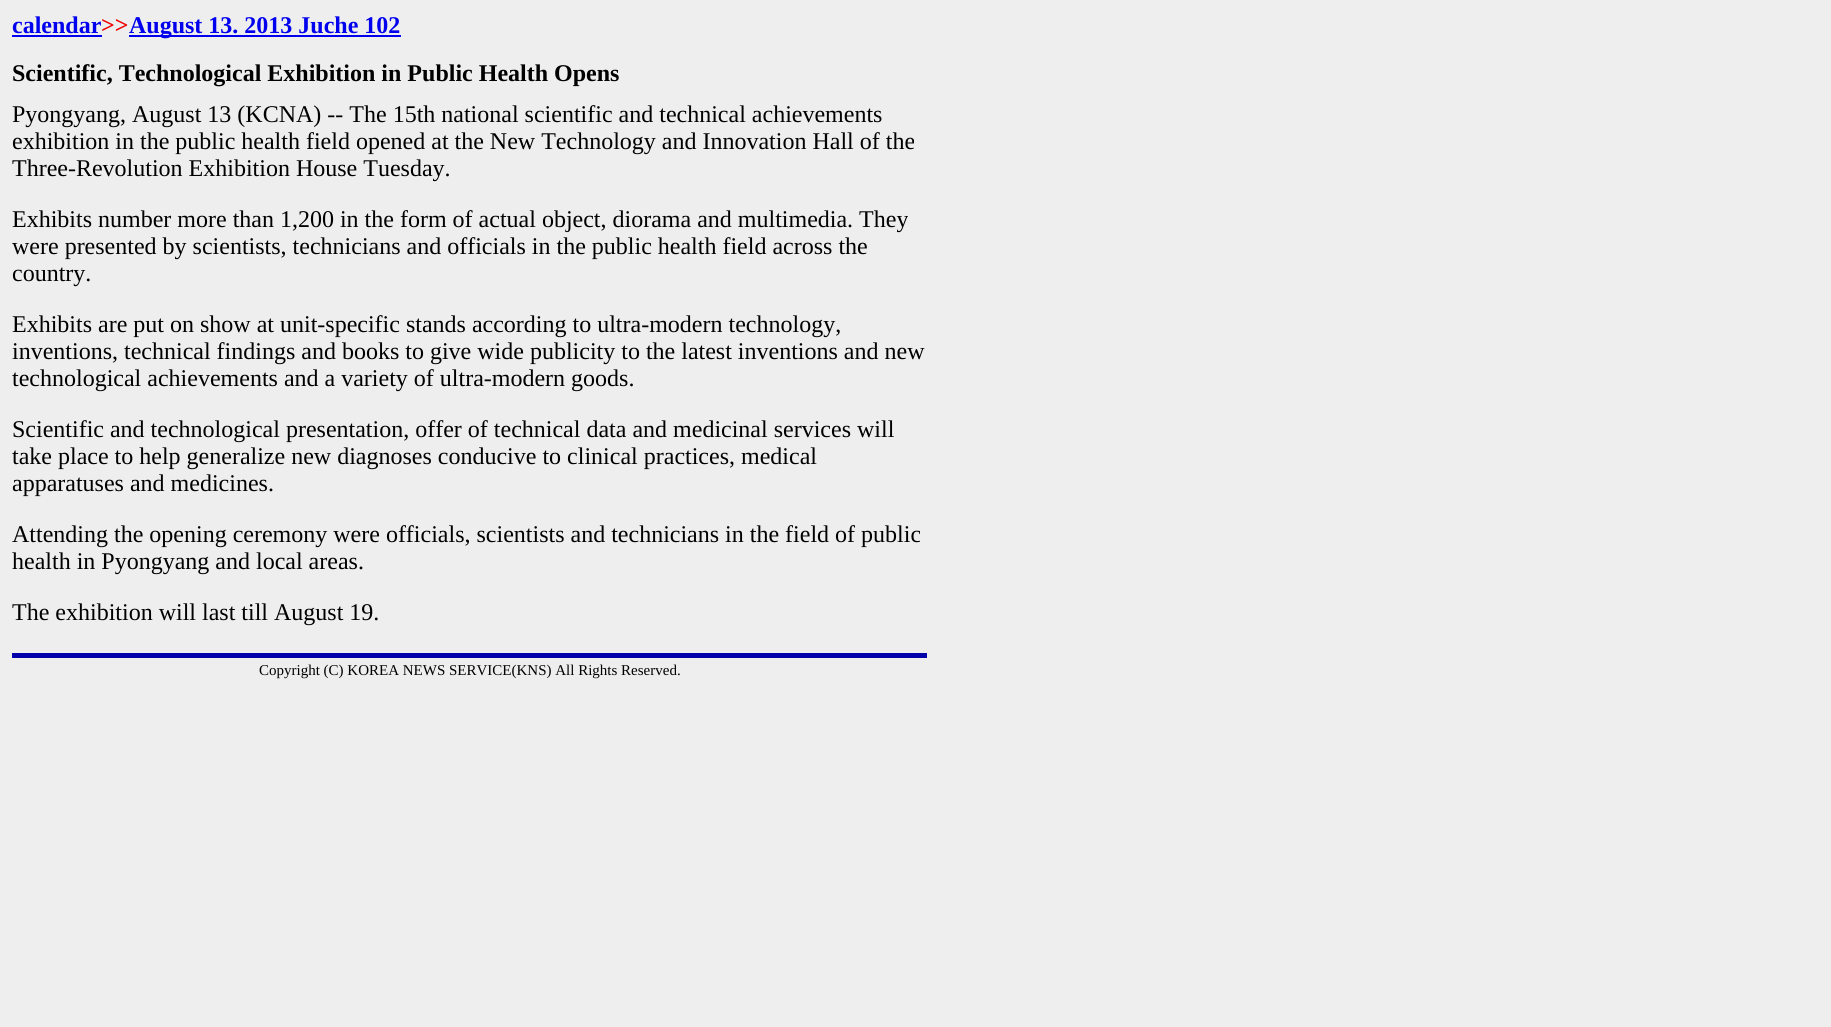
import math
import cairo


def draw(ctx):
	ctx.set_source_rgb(0.933, 0.933, 0.933)
	ctx.paint()
	ctx.select_font_face('Liberation Serif', cairo.FONT_SLANT_NORMAL, cairo.FONT_WEIGHT_BOLD)
	ctx.set_font_size(24)
	ctx.set_source_rgb(0, 0, 0.933)
	ctx.move_to(12, 33)
	ctx.show_text('calendar')
	ctx.set_source_rgb(0.933, 0, 0)
	ctx.move_to(101, 33)
	ctx.show_text('>>')
	ctx.set_source_rgb(0, 0, 0.933)
	ctx.rectangle(12, 35, 90, 2)
	ctx.fill()
	ctx.rectangle(129, 35, 272, 2)
	ctx.fill()
	ctx.move_to(129, 33)
	ctx.show_text('August 13. 2013 Juche 102')
	ctx.set_source_rgb(0, 0, 0)
	ctx.move_to(12, 81)
	ctx.show_text('Scientific, Technological Exhibition in Public Health Opens')
	ctx.select_font_face('Liberation Serif')
	for x, y, s in [
		(12, 122, 'Pyongyang, August 13 (KCNA) -- The 15th national scientific and technical achievements'),
		(12, 149, 'exhibition in the public health field opened at the New Technology and Innovation Hall of the'),
		(12, 176, 'Three-Revolution Exhibition House Tuesday.'),
		(12, 227, 'Exhibits number more than 1,200 in the form of actual object, diorama and multimedia. They'),
		(12, 254, 'were presented by scientists, technicians and officials in the public health field across the'),
		(12, 281, 'country.'),
		(12, 332, 'Exhibits are put on show at unit-specific stands according to ultra-modern technology,'),
		(12, 359, 'inventions, technical findings and books to give wide publicity to the latest inventions and new'),
		(12, 386, 'technological achievements and a variety of ultra-modern goods.'),
		(12, 437, 'Scientific and technological presentation, offer of technical data and medicinal services will'),
		(12, 464, 'take place to help generalize new diagnoses conducive to clinical practices, medical'),
		(12, 491, 'apparatuses and medicines.'),
		(12, 542, 'Attending the opening ceremony were officials, scientists and technicians in the field of public'),
		(12, 569, 'health in Pyongyang and local areas.'),
		(12, 620, 'The exhibition will last till August 19.'),
	]:
		ctx.move_to(x, y)
		ctx.show_text(s)
	ctx.set_source_rgb(0, 0, 0.667)
	ctx.rectangle(12, 653, 915, 5)
	ctx.fill()
	ctx.set_font_size(15)
	ctx.set_source_rgb(0, 0, 0)
	ctx.move_to(259, 675)
	ctx.show_text('Copyright (C) KOREA NEWS SERVICE(KNS) All Rights Reserved.')


surface = cairo.ImageSurface(cairo.FORMAT_RGB24, 1831, 1027)
ctx = cairo.Context(surface)
options = cairo.FontOptions()
options.set_hint_metrics(cairo.HINT_METRICS_OFF)
options.set_hint_style(cairo.HINT_STYLE_NONE)
ctx.set_font_options(options)
ctx.set_miter_limit(4)
draw(ctx)
surface.write_to_png('image.png')
